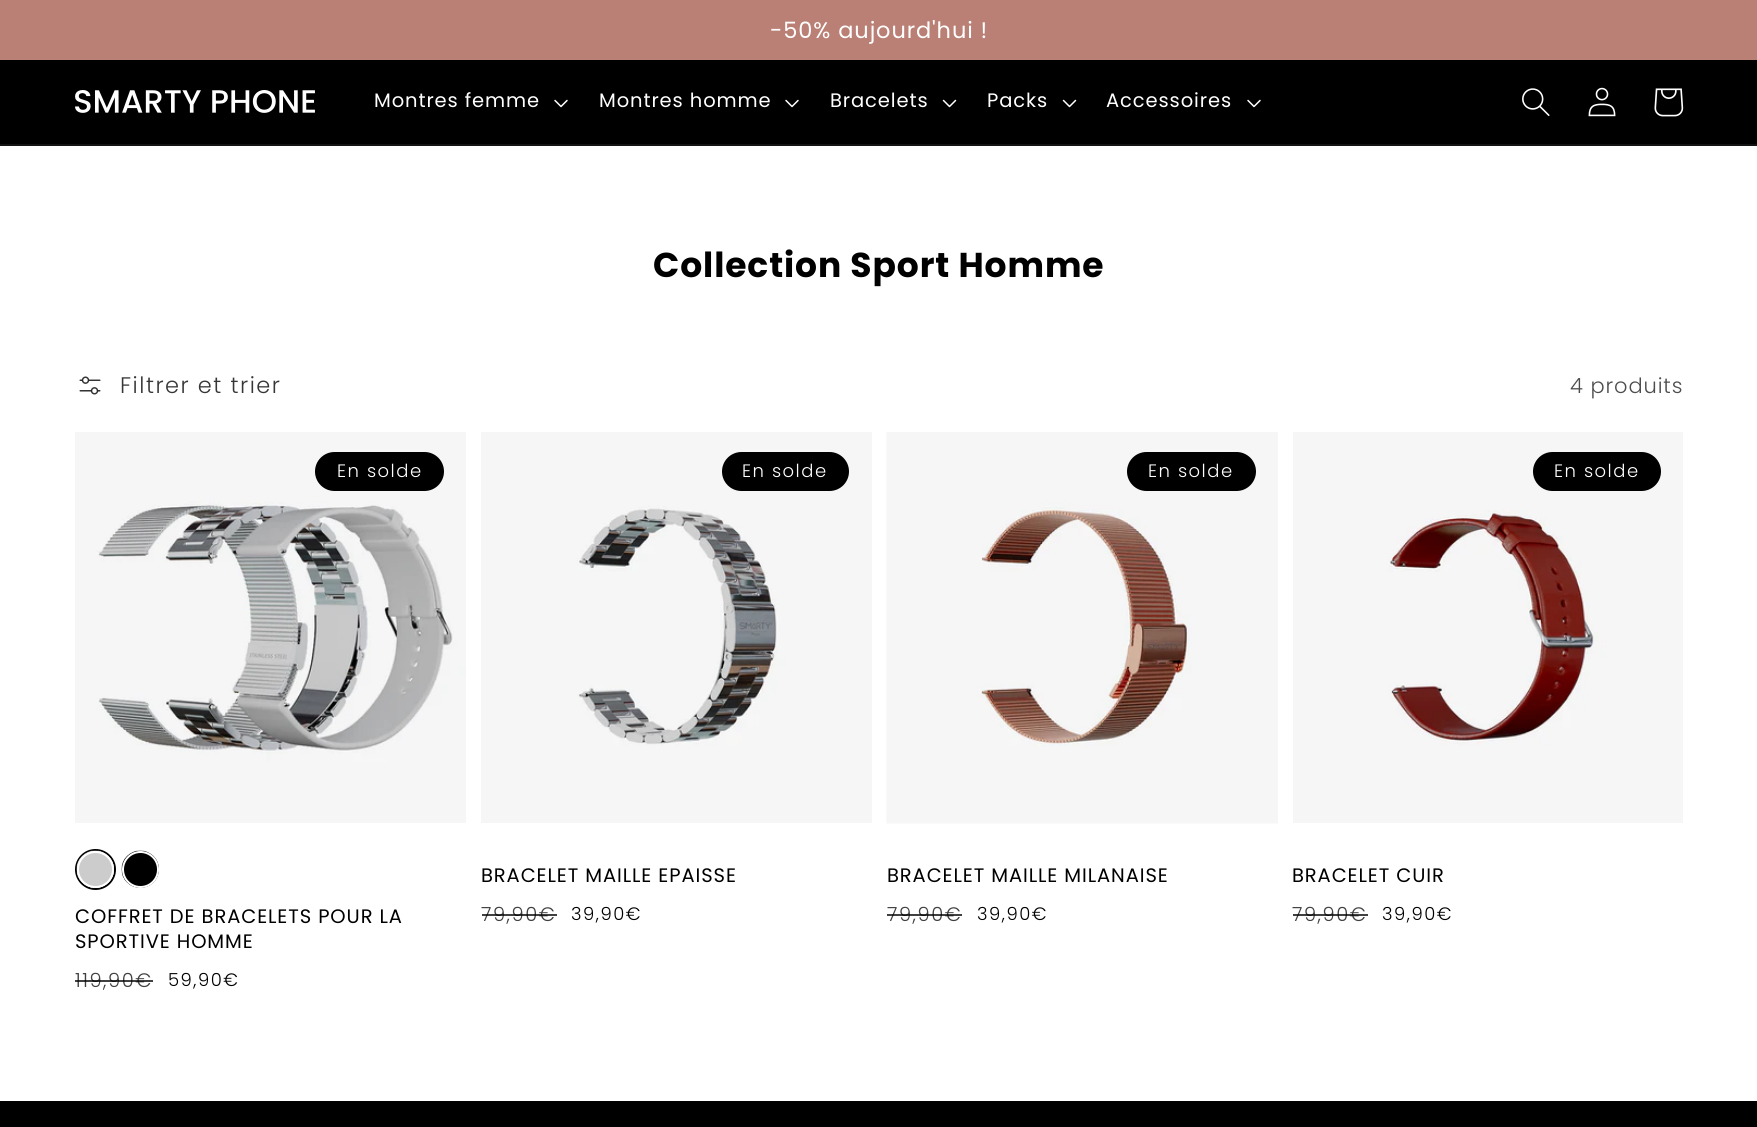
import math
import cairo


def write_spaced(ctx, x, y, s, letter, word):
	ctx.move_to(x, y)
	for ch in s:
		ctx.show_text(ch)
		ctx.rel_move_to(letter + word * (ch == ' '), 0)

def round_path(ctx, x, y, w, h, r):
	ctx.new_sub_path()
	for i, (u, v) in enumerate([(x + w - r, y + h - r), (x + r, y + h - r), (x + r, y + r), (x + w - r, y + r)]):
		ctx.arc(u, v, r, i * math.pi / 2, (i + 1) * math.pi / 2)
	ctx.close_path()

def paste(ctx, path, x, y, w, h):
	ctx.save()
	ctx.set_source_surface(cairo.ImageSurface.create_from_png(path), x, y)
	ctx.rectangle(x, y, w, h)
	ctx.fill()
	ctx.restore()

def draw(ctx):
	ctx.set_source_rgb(1, 1, 1)
	ctx.paint()
	ctx.set_source_rgb(0.729, 0.502, 0.459)
	ctx.rectangle(0, 0, 1757, 60)
	ctx.fill()
	ctx.select_font_face('Poppins')
	ctx.set_font_size(22.5)
	ctx.set_source_rgb(1, 1, 1)
	write_spaced(ctx, 770, 38, '-50% aujourd\'hui !', 0.9, 0)
	ctx.set_source_rgb(0, 0, 0)
	ctx.rectangle(0, 60, 1757, 84)
	ctx.fill()
	ctx.set_source_rgb(0.078, 0.078, 0.078)
	ctx.rectangle(0, 144, 1757, 2)
	ctx.fill()
	paste(ctx, 'media/1.png', 75, 90, 240, 23)
	ctx.set_font_size(19.5)
	ctx.set_source_rgb(1, 1, 1)
	write_spaced(ctx, 374, 107, 'Montres femme', 0.9, 0)
	paste(ctx, 'media/2.png', 554, 99, 14, 9)
	write_spaced(ctx, 599, 107, 'Montres homme', 0.9, 0)
	paste(ctx, 'media/2.png', 785, 99, 14, 9)
	write_spaced(ctx, 830, 107, 'Bracelets', 0.9, 0)
	paste(ctx, 'media/3.png', 942, 99, 15, 9)
	write_spaced(ctx, 987, 107, 'Packs', 0.9, 0)
	paste(ctx, 'media/3.png', 1062, 99, 15, 9)
	write_spaced(ctx, 1106, 107, 'Accessoires', 0.9, 0)
	paste(ctx, 'media/2.png', 1247, 99, 14, 9)
	paste(ctx, 'media/4.png', 1522, 88, 28, 28)
	paste(ctx, 'media/5.png', 1588, 87, 28, 30)
	paste(ctx, 'media/6.png', 1654, 88, 30, 29)
	ctx.select_font_face('Poppins', cairo.FONT_SLANT_NORMAL, cairo.FONT_WEIGHT_BOLD)
	ctx.set_font_size(34.5)
	ctx.set_source_rgb(0, 0, 0)
	write_spaced(ctx, 653, 277, 'Collection Sport Homme', 0.9, 0)
	paste(ctx, 'media/7.png', 79, 376, 22, 19)
	ctx.select_font_face('Poppins Light')
	ctx.set_font_size(22.5)
	ctx.set_source_rgb(0.212, 0.212, 0.212)
	write_spaced(ctx, 120, 393, 'Filtrer et trier', 1.5, 0)
	ctx.set_font_size(21)
	ctx.set_source_rgb(0.302, 0.302, 0.302)
	write_spaced(ctx, 1570, 393, '4 produits', 0.9, 0)
	paste(ctx, 'media/8.png', 75, 432, 391, 391)
	ctx.set_source_rgb(0, 0, 0)
	round_path(ctx, 316, 453, 127, 37, 18.5)
	ctx.fill_preserve()
	ctx.stroke()
	ctx.set_font_size(18)
	ctx.set_source_rgb(1, 1, 1)
	write_spaced(ctx, 337, 477, 'En solde', 1.5, 0)
	ctx.new_path()
	ctx.arc(95.5, 869.5, 19.5, 0, 2 * math.pi)
	ctx.set_source_rgb(0, 0, 0)
	ctx.stroke()
	paste(ctx, 'media/9.png', 76, 850, 38, 38)
	ctx.arc(95.5, 869.5, 17.5, 0, 2 * math.pi)
	ctx.set_source_rgb(1, 1, 1)
	ctx.stroke()
	paste(ctx, 'media/10.png', 121, 850, 38, 38)
	ctx.arc(140.5, 869.5, 17.5, 0, 2 * math.pi)
	ctx.stroke()
	ctx.select_font_face('Poppins')
	ctx.set_font_size(19.5)
	ctx.set_source_rgb(0, 0, 0)
	write_spaced(ctx, 75, 923, 'COFFRET DE BRACELETS POUR LA', 0.9, 0)
	write_spaced(ctx, 75, 948, 'SPORTIVE HOMME', 0.9, 0)
	ctx.select_font_face('Poppins Light')
	ctx.set_source_rgb(0.251, 0.251, 0.251)
	write_spaced(ctx, 75, 987, '119,90€', 1.5, 0)
	ctx.set_source_rgba(0, 0, 0, 0.75)
	ctx.rectangle(75, 980, 78, 2)
	ctx.fill()
	ctx.set_font_size(18)
	ctx.set_source_rgb(0, 0, 0)
	write_spaced(ctx, 168, 986, '59,90€', 1.5, 0)
	paste(ctx, 'media/11.png', 481, 432, 391, 391)
	round_path(ctx, 723, 453, 125, 37, 18.5)
	ctx.fill_preserve()
	ctx.stroke()
	ctx.set_source_rgb(1, 1, 1)
	write_spaced(ctx, 742, 477, 'En solde', 1.5, 0)
	ctx.select_font_face('Poppins')
	ctx.set_font_size(19.5)
	ctx.set_source_rgb(0, 0, 0)
	write_spaced(ctx, 481, 882, 'BRACELET MAILLE EPAISSE', 0.9, 0)
	ctx.select_font_face('Poppins Light')
	ctx.set_source_rgb(0.251, 0.251, 0.251)
	write_spaced(ctx, 481, 921, '79,90€', 1.5, 0)
	ctx.set_source_rgba(0, 0, 0, 0.75)
	ctx.rectangle(482, 914, 75, 2)
	ctx.fill()
	ctx.set_font_size(18)
	ctx.set_source_rgb(0, 0, 0)
	write_spaced(ctx, 571, 920, '39,90€', 1.5, 0)
	paste(ctx, 'media/12.png', 886, 432, 392, 392)
	round_path(ctx, 1128, 453, 127, 37, 18.5)
	ctx.fill_preserve()
	ctx.stroke()
	ctx.set_source_rgb(1, 1, 1)
	write_spaced(ctx, 1148, 477, 'En solde', 1.5, 0)
	ctx.select_font_face('Poppins')
	ctx.set_font_size(19.5)
	ctx.set_source_rgb(0, 0, 0)
	write_spaced(ctx, 887, 882, 'BRACELET MAILLE MILANAISE', 0.9, 0)
	ctx.select_font_face('Poppins Light')
	ctx.set_source_rgb(0.251, 0.251, 0.251)
	write_spaced(ctx, 887, 921, '79,90€', 1.5, 0)
	ctx.set_source_rgba(0, 0, 0, 0.75)
	ctx.rectangle(887, 914, 75, 2)
	ctx.fill()
	ctx.set_font_size(18)
	ctx.set_source_rgb(0, 0, 0)
	write_spaced(ctx, 977, 920, '39,90€', 1.5, 0)
	paste(ctx, 'media/13.png', 1293, 432, 390, 391)
	round_path(ctx, 1534, 453, 126, 37, 18.5)
	ctx.fill_preserve()
	ctx.stroke()
	ctx.set_source_rgb(1, 1, 1)
	write_spaced(ctx, 1554, 477, 'En solde', 1.5, 0)
	ctx.select_font_face('Poppins')
	ctx.set_font_size(19.5)
	ctx.set_source_rgb(0, 0, 0)
	write_spaced(ctx, 1292, 882, 'BRACELET CUIR', 0.9, 0)
	ctx.select_font_face('Poppins Light')
	ctx.set_source_rgb(0.251, 0.251, 0.251)
	write_spaced(ctx, 1292, 921, '79,90€', 1.5, 0)
	ctx.set_source_rgba(0, 0, 0, 0.75)
	ctx.rectangle(1293, 914, 75, 2)
	ctx.fill()
	ctx.set_font_size(18)
	ctx.set_source_rgb(0, 0, 0)
	write_spaced(ctx, 1382, 920, '39,90€', 1.5, 0)
	ctx.rectangle(0, 1101, 1757, 26)
	ctx.fill()


surface = cairo.ImageSurface(cairo.FORMAT_RGB24, 1757, 1127)
ctx = cairo.Context(surface)
options = cairo.FontOptions()
options.set_hint_metrics(cairo.HINT_METRICS_OFF)
options.set_hint_style(cairo.HINT_STYLE_NONE)
ctx.set_font_options(options)
ctx.set_miter_limit(4)
draw(ctx)
surface.write_to_png('image.png')
